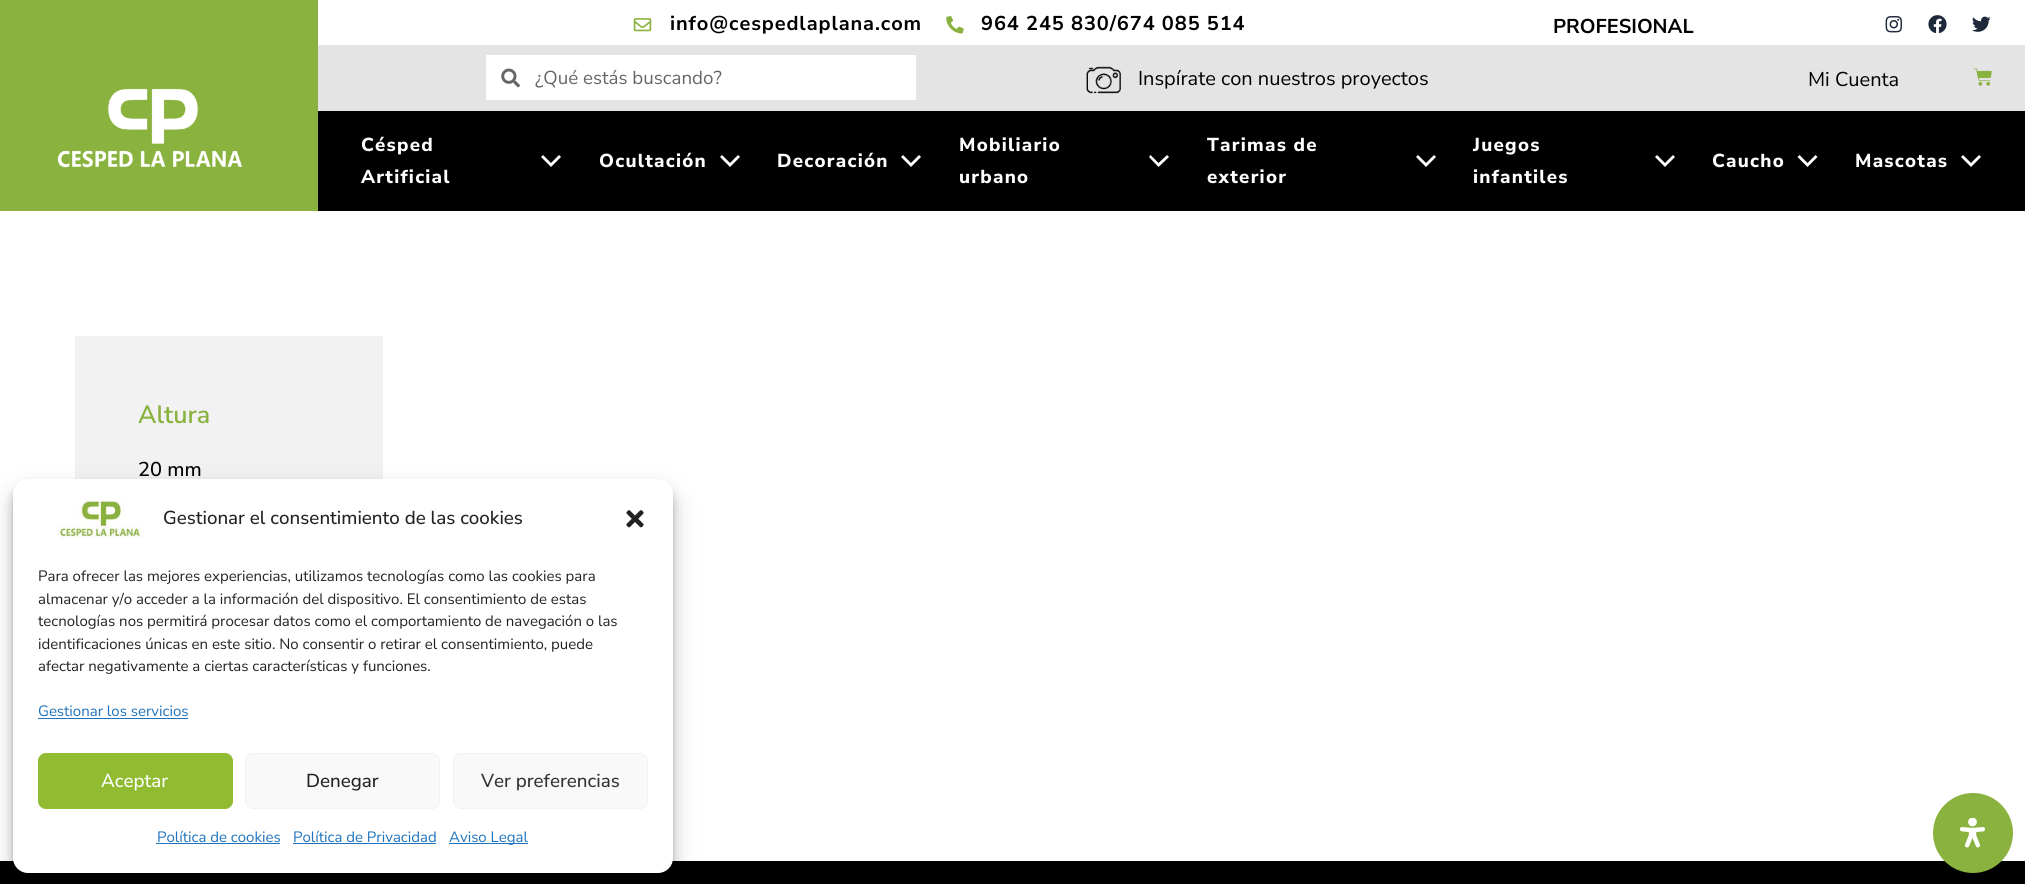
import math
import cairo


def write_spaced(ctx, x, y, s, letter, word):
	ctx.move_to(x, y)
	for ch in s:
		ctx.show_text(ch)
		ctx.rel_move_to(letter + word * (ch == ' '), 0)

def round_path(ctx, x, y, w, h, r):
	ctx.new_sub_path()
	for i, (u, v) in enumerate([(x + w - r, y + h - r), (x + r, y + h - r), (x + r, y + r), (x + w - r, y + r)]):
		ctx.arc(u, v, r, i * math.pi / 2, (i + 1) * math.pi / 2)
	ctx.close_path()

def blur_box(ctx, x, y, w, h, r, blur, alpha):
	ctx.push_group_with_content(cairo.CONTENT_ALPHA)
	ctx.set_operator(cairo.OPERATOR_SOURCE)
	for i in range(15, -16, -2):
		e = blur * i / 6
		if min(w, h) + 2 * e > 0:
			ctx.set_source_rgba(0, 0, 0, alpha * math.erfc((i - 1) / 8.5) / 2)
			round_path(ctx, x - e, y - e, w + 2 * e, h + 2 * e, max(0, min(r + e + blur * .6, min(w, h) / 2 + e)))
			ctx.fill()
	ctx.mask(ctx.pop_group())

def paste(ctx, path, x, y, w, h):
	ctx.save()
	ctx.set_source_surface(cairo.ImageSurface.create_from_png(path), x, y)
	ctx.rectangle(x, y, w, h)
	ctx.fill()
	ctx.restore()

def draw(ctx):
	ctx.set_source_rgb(1, 1, 1)
	ctx.paint()
	ctx.set_source_rgb(0.541, 0.698, 0.243)
	ctx.rectangle(0, 0, 318, 211)
	ctx.fill()
	paste(ctx, 'media/1.png', 633, 18, 19, 14)
	ctx.select_font_face('Nunito Sans', cairo.FONT_SLANT_NORMAL, cairo.FONT_WEIGHT_BOLD)
	ctx.set_font_size(20)
	ctx.set_source_rgb(0, 0, 0)
	write_spaced(ctx, 670, 30, 'info@cespedlaplana.com', 0.9, 0)
	paste(ctx, 'media/2.png', 946, 16, 18, 18)
	write_spaced(ctx, 981, 30, '964 245 830/674 085 514', 0.9, 0)
	ctx.move_to(1553, 33)
	ctx.show_text('PROFESIONAL')
	paste(ctx, 'media/3.png', 1885, 16, 17, 17)
	paste(ctx, 'media/4.png', 1928, 15, 19, 19)
	paste(ctx, 'media/5.png', 1972, 16, 19, 16)
	ctx.set_source_rgb(0.894, 0.894, 0.894)
	ctx.rectangle(318, 45, 1707, 66)
	ctx.fill()
	ctx.set_source_rgb(1, 1, 1)
	ctx.rectangle(486, 55, 430, 45)
	ctx.fill()
	paste(ctx, 'media/6.png', 501, 68, 19, 20)
	ctx.select_font_face('Nunito Sans')
	ctx.set_font_size(18.75)
	ctx.set_source_rgb(0.4, 0.4, 0.4)
	ctx.move_to(535, 84)
	ctx.show_text('¿Qué estás buscando?')
	paste(ctx, 'media/7.png', 1086, 66, 35, 28)
	ctx.set_font_size(20)
	ctx.set_source_rgb(0, 0, 0)
	ctx.move_to(1138, 85)
	ctx.show_text('Inspírate con nuestros proyectos')
	ctx.move_to(1808, 86)
	ctx.show_text('Mi Cuenta')
	paste(ctx, 'media/8.png', 1973, 68, 19, 18)
	ctx.rectangle(318, 111, 1707, 100)
	ctx.fill()
	paste(ctx, 'media/9.png', 57, 88, 186, 80)
	ctx.select_font_face('Nunito Sans ExtraBold')
	ctx.set_font_size(18.75)
	ctx.set_source_rgb(1, 1, 1)
	write_spaced(ctx, 361, 151, 'Césped', 1.25, 0)
	write_spaced(ctx, 361, 183, 'Artificial', 1.25, 0)
	ctx.new_path()
	ctx.move_to(543, 155)
	ctx.line_to(541, 157)
	ctx.line_to(551, 167)
	ctx.line_to(561, 157)
	ctx.line_to(559, 155)
	ctx.line_to(551, 163)
	ctx.close_path()
	ctx.fill()
	write_spaced(ctx, 599, 167, 'Ocultación', 1.25, 0)
	ctx.new_path()
	ctx.move_to(722, 155)
	ctx.line_to(720, 157)
	ctx.line_to(730, 167)
	ctx.line_to(740, 157)
	ctx.line_to(738, 155)
	ctx.line_to(730, 163)
	ctx.close_path()
	ctx.fill()
	write_spaced(ctx, 777, 167, 'Decoración', 1.25, 0)
	ctx.new_path()
	ctx.move_to(903, 155)
	ctx.line_to(901, 157)
	ctx.line_to(911, 167)
	ctx.line_to(921, 157)
	ctx.line_to(919, 155)
	ctx.line_to(911, 163)
	ctx.close_path()
	ctx.fill()
	write_spaced(ctx, 959, 151, 'Mobiliario', 1.25, 0)
	write_spaced(ctx, 959, 183, 'urbano', 1.25, 0)
	ctx.new_path()
	ctx.move_to(1150.5, 155)
	ctx.line_to(1149, 157)
	ctx.line_to(1158.5, 167)
	ctx.line_to(1169, 157)
	ctx.line_to(1167, 155)
	ctx.line_to(1158.5, 163)
	ctx.close_path()
	ctx.fill()
	write_spaced(ctx, 1207, 151, 'Tarimas de', 1.25, 0)
	write_spaced(ctx, 1207, 183, 'exterior', 1.25, 0)
	ctx.new_path()
	ctx.move_to(1418, 155)
	ctx.line_to(1416, 157)
	ctx.line_to(1426, 167)
	ctx.line_to(1436, 157)
	ctx.line_to(1434, 155)
	ctx.line_to(1426, 163)
	ctx.close_path()
	ctx.fill()
	write_spaced(ctx, 1473, 151, 'Juegos', 1.25, 0)
	write_spaced(ctx, 1473, 183, 'infantiles', 1.25, 0)
	ctx.new_path()
	ctx.move_to(1657, 155)
	ctx.line_to(1655, 157)
	ctx.line_to(1665, 167)
	ctx.line_to(1675, 157)
	ctx.line_to(1673, 155)
	ctx.line_to(1665, 163)
	ctx.close_path()
	ctx.fill()
	write_spaced(ctx, 1712, 167, 'Caucho', 1.25, 0)
	ctx.new_path()
	ctx.move_to(1799.5, 155)
	ctx.line_to(1797.5, 157)
	ctx.line_to(1807.5, 167)
	ctx.line_to(1817.5, 157)
	ctx.line_to(1815.5, 155)
	ctx.line_to(1807.5, 163)
	ctx.close_path()
	ctx.fill()
	write_spaced(ctx, 1855, 167, 'Mascotas', 1.25, 0)
	ctx.new_path()
	ctx.move_to(1963, 155)
	ctx.line_to(1961, 157)
	ctx.line_to(1971, 167)
	ctx.line_to(1981, 157)
	ctx.line_to(1979, 155)
	ctx.line_to(1971, 163)
	ctx.close_path()
	ctx.fill()
	ctx.set_source_rgb(0.949, 0.949, 0.949)
	ctx.rectangle(75, 336, 308, 143)
	ctx.fill()
	ctx.select_font_face('Nunito Sans SemiBold')
	ctx.set_font_size(25)
	ctx.set_source_rgb(0.541, 0.698, 0.243)
	ctx.move_to(138, 423)
	ctx.show_text('Altura')
	ctx.select_font_face('Nunito Sans Medium')
	ctx.set_font_size(20)
	ctx.set_source_rgb(0, 0, 0)
	ctx.move_to(138, 476)
	ctx.show_text('20 mm')
	ctx.rectangle(0, 861, 2025, 23)
	ctx.fill()
	ctx.set_source_rgb(0, 0, 0)
	blur_box(ctx, 13, 486, 660, 394, 15, 4, 0.23)
	blur_box(ctx, 13, 491, 660, 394, 15, 12.5, 0.19)
	ctx.set_source_rgb(1, 1, 1)
	round_path(ctx, 13, 479, 660, 394, 15)
	ctx.fill()
	paste(ctx, 'media/10.png', 57, 498, 87, 41)
	ctx.set_font_size(18.75)
	ctx.set_source_rgb(0.133, 0.133, 0.133)
	ctx.move_to(163, 524)
	ctx.show_text('Gestionar el consentimiento de las cookies')
	paste(ctx, 'media/11.png', 626, 510, 18, 18)
	ctx.select_font_face('Nunito Sans')
	ctx.set_font_size(15)
	for x, y, s in [
		(38, 581, 'Para ofrecer las mejores experiencias, utilizamos tecnologías como las cookies para'),
		(38, 604, 'almacenar y/o acceder a la información del dispositivo. El consentimiento de estas'),
		(38, 626, 'tecnologías nos permitirá procesar datos como el comportamiento de navegación o las'),
		(38, 649, 'identificaciones únicas en este sitio. No consentir o retirar el consentimiento, puede'),
		(38, 671, 'afectar negativamente a ciertas características y funciones.'),
	]:
		ctx.move_to(x, y)
		ctx.show_text(s)
	ctx.set_source_rgb(0.118, 0.451, 0.745)
	ctx.move_to(38, 716)
	ctx.show_text('Gestionar los servicios')
	ctx.rectangle(38, 718, 150, 1)
	ctx.fill()
	ctx.set_source_rgb(0.569, 0.737, 0.196)
	round_path(ctx, 38.5, 753.5, 194, 55, 7.5)
	ctx.fill_preserve()
	ctx.set_line_width(1)
	ctx.stroke()
	ctx.select_font_face('Nunito Sans Medium')
	ctx.set_font_size(18.75)
	ctx.set_source_rgb(1, 1, 1)
	ctx.move_to(101, 787)
	ctx.show_text('Aceptar')
	ctx.set_source_rgb(0.976, 0.976, 0.976)
	round_path(ctx, 245.5, 753.5, 194, 55, 7.5)
	ctx.fill_preserve()
	ctx.set_source_rgb(0.949, 0.949, 0.949)
	ctx.stroke()
	ctx.set_source_rgb(0.133, 0.133, 0.133)
	ctx.move_to(306, 787)
	ctx.show_text('Denegar')
	ctx.set_source_rgb(0.976, 0.976, 0.976)
	round_path(ctx, 453.5, 753.5, 194, 55, 7.5)
	ctx.fill_preserve()
	ctx.set_source_rgb(0.949, 0.949, 0.949)
	ctx.stroke()
	ctx.set_source_rgb(0.2, 0.2, 0.2)
	ctx.move_to(481, 787)
	ctx.show_text('Ver preferencias')
	ctx.select_font_face('Nunito Sans')
	ctx.set_font_size(15)
	ctx.set_source_rgb(0.118, 0.451, 0.745)
	ctx.move_to(157, 842)
	ctx.show_text('Política de cookies')
	ctx.rectangle(156, 843, 124, 1)
	ctx.fill()
	ctx.move_to(293, 842)
	ctx.show_text('Política de Privacidad')
	ctx.rectangle(293, 843, 143, 1)
	ctx.fill()
	ctx.rectangle(449, 843, 79, 1)
	ctx.fill()
	ctx.move_to(449, 842)
	ctx.show_text('Aviso Legal')
	ctx.set_source_rgb(0.541, 0.698, 0.243)
	ctx.new_path()
	ctx.arc(1973, 833, 40, 0, 2 * math.pi)
	ctx.fill()
	paste(ctx, 'media/12.png', 1960, 818, 25, 30)


surface = cairo.ImageSurface(cairo.FORMAT_RGB24, 2025, 884)
ctx = cairo.Context(surface)
options = cairo.FontOptions()
options.set_hint_metrics(cairo.HINT_METRICS_OFF)
options.set_hint_style(cairo.HINT_STYLE_NONE)
ctx.set_font_options(options)
ctx.set_miter_limit(4)
draw(ctx)
surface.write_to_png('image.png')
